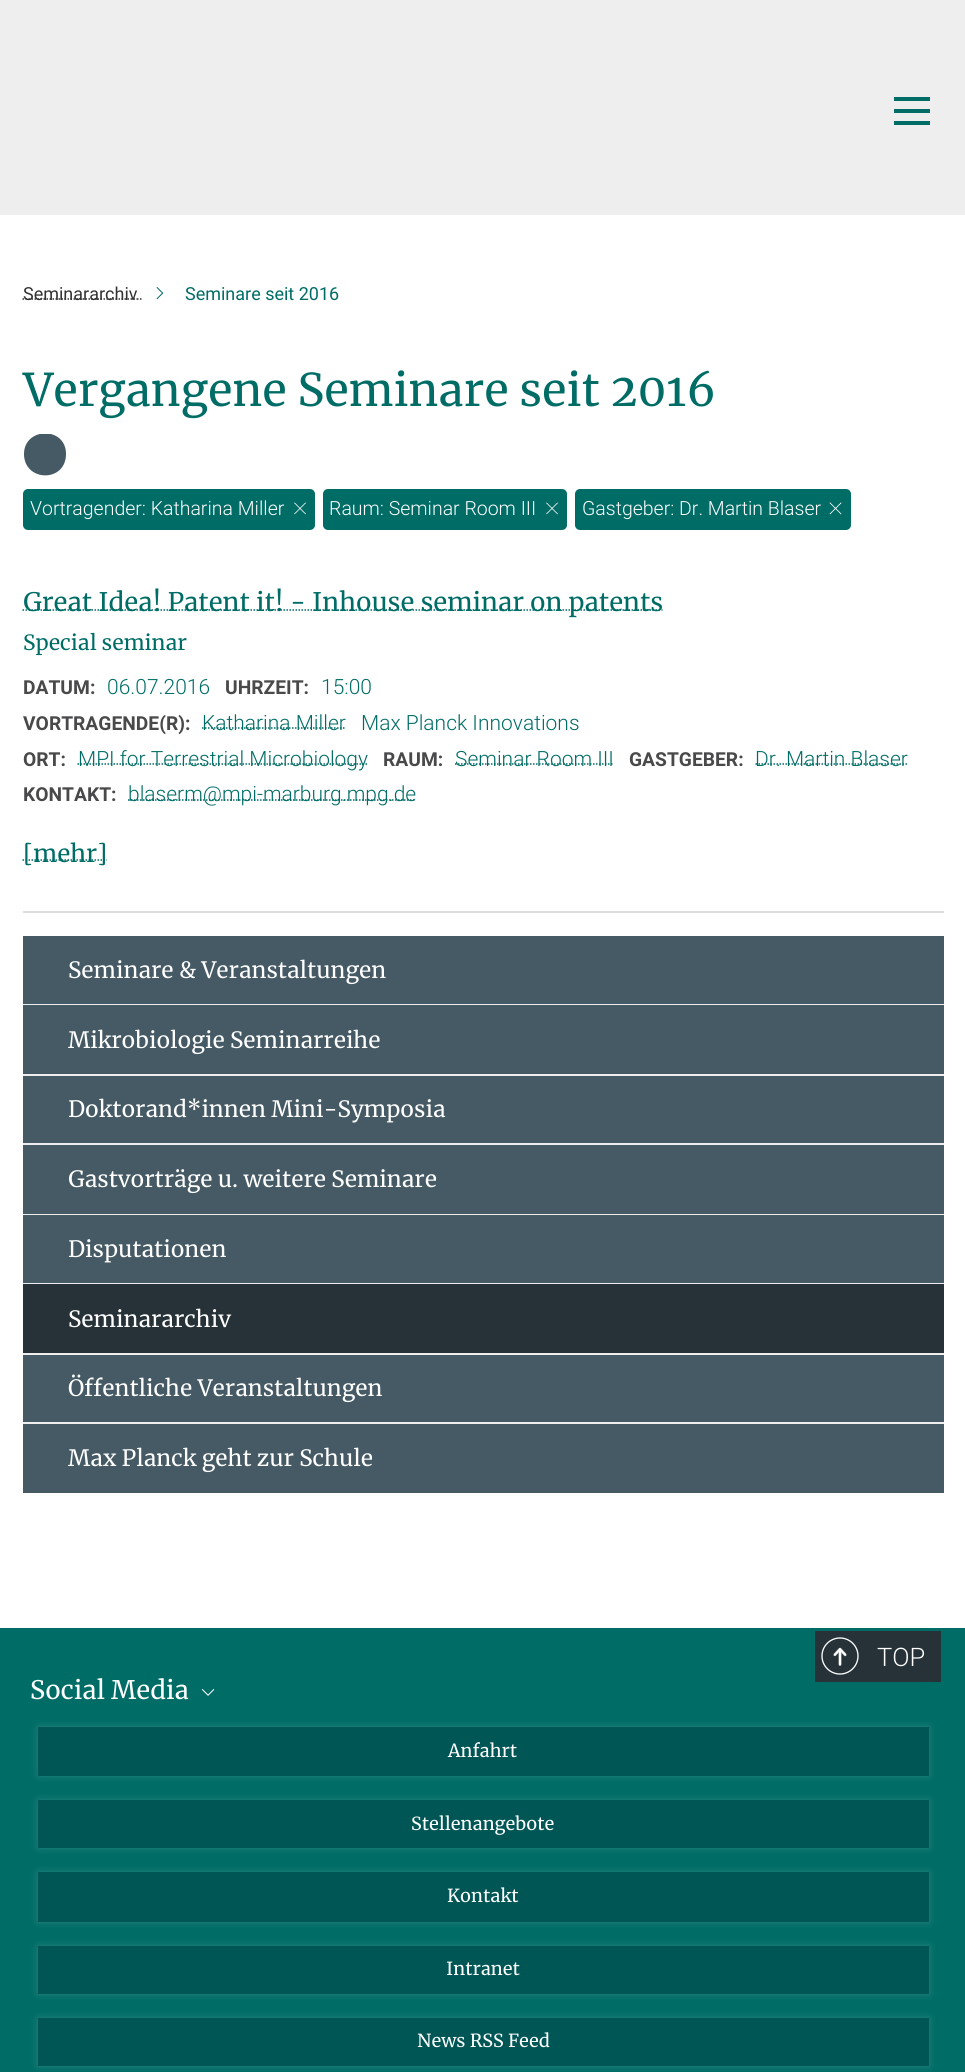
import math
import cairo


def round_path(ctx, x, y, w, h, r):
	ctx.new_sub_path()
	for i, (u, v) in enumerate([(x + w - r, y + h - r), (x + r, y + h - r), (x + r, y + r), (x + w - r, y + r)]):
		ctx.arc(u, v, r, i * math.pi / 2, (i + 1) * math.pi / 2)
	ctx.close_path()

def blur_box(ctx, x, y, w, h, r, blur, alpha):
	ctx.push_group_with_content(cairo.CONTENT_ALPHA)
	ctx.set_operator(cairo.OPERATOR_SOURCE)
	for i in range(15, -16, -2):
		e = blur * i / 6
		if min(w, h) + 2 * e > 0:
			ctx.set_source_rgba(0, 0, 0, alpha * math.erfc((i - 1) / 8.5) / 2)
			round_path(ctx, x - e, y - e, w + 2 * e, h + 2 * e, max(0, min(r + e + blur * .6, min(w, h) / 2 + e)))
			ctx.fill()
	ctx.mask(ctx.pop_group())

def paste(ctx, path, x, y, w, h):
	ctx.save()
	ctx.set_source_surface(cairo.ImageSurface.create_from_png(path), x, y)
	ctx.rectangle(x, y, w, h)
	ctx.fill()
	ctx.restore()

def draw(ctx):
	ctx.set_source_rgb(1, 1, 1)
	ctx.paint()
	ctx.set_source_rgb(0.933, 0.933, 0.933)
	ctx.rectangle(0, 0, 965, 215)
	ctx.fill()
	ctx.set_source_rgb(0, 0.424, 0.4)
	ctx.rectangle(894, 97, 36, 4)
	ctx.rectangle(894, 109, 36, 4)
	ctx.rectangle(894, 121, 36, 4)
	ctx.fill()
	ctx.new_path()
	ctx.move_to(22.5, 299)
	ctx.line_to(137, 299)
	ctx.set_source_rgb(0.2, 0.2, 0.2)
	ctx.set_line_width(1.5)
	ctx.set_dash([1.5, 1.5])
	ctx.stroke()
	ctx.select_font_face('Roboto')
	ctx.set_font_size(18)
	ctx.move_to(23, 300)
	ctx.show_text('Seminararchiv')
	ctx.new_path()
	ctx.move_to(137, 299)
	ctx.line_to(138.5, 299)
	ctx.move_to(140, 299)
	ctx.line_to(141.5, 299)
	ctx.set_dash([])
	ctx.stroke()
	paste(ctx, 'media/1.png', 156, 287, 8, 13)
	ctx.set_source_rgb(0, 0.424, 0.4)
	ctx.move_to(185, 300)
	ctx.show_text('Seminare seit 2016')
	ctx.select_font_face('Merriweather')
	ctx.set_font_size(45)
	ctx.move_to(23, 406)
	ctx.show_text('Vergangene Seminare seit 2016')
	ctx.save()
	ctx.rectangle(24, 434, 42, 42)
	ctx.clip()
	ctx.set_source_rgb(0.271, 0.353, 0.392)
	ctx.new_path()
	ctx.move_to(66, 454)
	ctx.curve_to(66, 483, 24, 482, 24, 454)
	ctx.curve_to(24, 427, 66, 426, 66, 454)
	ctx.close_path()
	ctx.fill()
	ctx.restore()
	round_path(ctx, 23, 489, 292, 41, 5)
	ctx.fill()
	ctx.select_font_face('Roboto Light')
	ctx.set_font_size(19.5)
	ctx.set_source_rgb(1, 1, 1)
	ctx.move_to(30, 515)
	ctx.show_text('Vortragender: Katharina Miller')
	paste(ctx, 'media/2.png', 294, 502, 12, 13)
	ctx.set_source_rgb(0, 0.424, 0.4)
	round_path(ctx, 323, 489, 244, 41, 5)
	ctx.fill()
	ctx.set_source_rgb(1, 1, 1)
	ctx.move_to(329, 515)
	ctx.show_text('Raum: Seminar Room III')
	paste(ctx, 'media/3.png', 546, 502, 12, 13)
	ctx.set_source_rgb(0, 0.424, 0.4)
	round_path(ctx, 575, 489, 276, 41, 5)
	ctx.fill()
	ctx.set_source_rgb(1, 1, 1)
	ctx.move_to(582, 515)
	ctx.show_text('Gastgeber: Dr. Martin Blaser')
	paste(ctx, 'media/4.png', 829, 502, 13, 13)
	ctx.set_source_rgb(0.867, 0.867, 0.867)
	ctx.rectangle(23, 911, 921, 2)
	ctx.fill()
	ctx.new_path()
	ctx.move_to(22.5, 610)
	ctx.line_to(662.5, 610)
	ctx.set_source_rgb(0, 0.424, 0.4)
	ctx.set_dash([1.5, 1.5])
	ctx.stroke()
	ctx.select_font_face('Merriweather')
	ctx.set_font_size(25.5)
	ctx.move_to(23, 611)
	ctx.show_text('Great Idea! Patent it! - Inhouse seminar on patents')
	ctx.set_font_size(21)
	ctx.move_to(23, 650)
	ctx.show_text('Special seminar')
	ctx.select_font_face('Roboto', cairo.FONT_SLANT_NORMAL, cairo.FONT_WEIGHT_BOLD)
	ctx.set_font_size(19.25)
	ctx.set_source_rgb(0.286, 0.286, 0.294)
	ctx.move_to(23, 694)
	ctx.show_text('DATUM:')
	ctx.select_font_face('Roboto Light')
	ctx.set_font_size(21)
	ctx.set_source_rgb(0, 0.424, 0.4)
	ctx.move_to(107, 694)
	ctx.show_text('06.07.2016')
	ctx.select_font_face('Roboto', cairo.FONT_SLANT_NORMAL, cairo.FONT_WEIGHT_BOLD)
	ctx.set_font_size(19.25)
	ctx.set_source_rgb(0.286, 0.286, 0.294)
	ctx.move_to(225, 694)
	ctx.show_text('UHRZEIT:')
	ctx.select_font_face('Roboto Light')
	ctx.set_font_size(21)
	ctx.set_source_rgb(0, 0.424, 0.4)
	ctx.move_to(321, 694)
	ctx.show_text('15:00')
	ctx.select_font_face('Roboto', cairo.FONT_SLANT_NORMAL, cairo.FONT_WEIGHT_BOLD)
	ctx.set_font_size(19.25)
	ctx.set_source_rgb(0.286, 0.286, 0.294)
	ctx.move_to(23, 730)
	ctx.show_text('VORTRAGENDE(R):')
	ctx.new_path()
	ctx.move_to(202, 728)
	ctx.line_to(345.5, 728)
	ctx.set_source_rgb(0, 0.424, 0.4)
	ctx.stroke()
	ctx.select_font_face('Roboto Light')
	ctx.set_font_size(21)
	ctx.move_to(202, 730)
	ctx.show_text('Katharina Miller')
	ctx.move_to(361, 730)
	ctx.show_text('Max Planck Innovations')
	ctx.select_font_face('Roboto', cairo.FONT_SLANT_NORMAL, cairo.FONT_WEIGHT_BOLD)
	ctx.set_font_size(19.25)
	ctx.set_source_rgb(0.286, 0.286, 0.294)
	ctx.move_to(23, 766)
	ctx.show_text('ORT:')
	ctx.new_path()
	ctx.move_to(77.5, 764)
	ctx.line_to(367.5, 764)
	ctx.set_source_rgb(0, 0.424, 0.4)
	ctx.stroke()
	ctx.select_font_face('Roboto Light')
	ctx.set_font_size(21)
	ctx.move_to(78, 766)
	ctx.show_text('MPI for Terrestrial Microbiology')
	ctx.select_font_face('Roboto', cairo.FONT_SLANT_NORMAL, cairo.FONT_WEIGHT_BOLD)
	ctx.set_font_size(19.25)
	ctx.set_source_rgb(0.286, 0.286, 0.294)
	ctx.move_to(383, 766)
	ctx.show_text('RAUM:')
	ctx.new_path()
	ctx.move_to(455, 764)
	ctx.line_to(614, 764)
	ctx.set_source_rgb(0, 0.424, 0.4)
	ctx.stroke()
	ctx.select_font_face('Roboto Light')
	ctx.set_font_size(21)
	ctx.move_to(455, 766)
	ctx.show_text('Seminar Room III')
	ctx.select_font_face('Roboto', cairo.FONT_SLANT_NORMAL, cairo.FONT_WEIGHT_BOLD)
	ctx.set_font_size(19.25)
	ctx.set_source_rgb(0.286, 0.286, 0.294)
	ctx.move_to(629, 766)
	ctx.show_text('GASTGEBER:')
	ctx.new_path()
	ctx.move_to(755.5, 764)
	ctx.line_to(908, 764)
	ctx.set_source_rgb(0, 0.424, 0.4)
	ctx.stroke()
	ctx.select_font_face('Roboto Light')
	ctx.set_font_size(21)
	ctx.move_to(755, 766)
	ctx.show_text('Dr. Martin Blaser')
	ctx.select_font_face('Roboto', cairo.FONT_SLANT_NORMAL, cairo.FONT_WEIGHT_BOLD)
	ctx.set_font_size(19.25)
	ctx.set_source_rgb(0.286, 0.286, 0.294)
	ctx.move_to(23, 801)
	ctx.show_text('KONTAKT:')
	ctx.new_path()
	ctx.move_to(128, 800)
	ctx.line_to(416, 800)
	ctx.set_source_rgb(0, 0.424, 0.4)
	ctx.stroke()
	ctx.select_font_face('Roboto Light')
	ctx.set_font_size(21)
	ctx.move_to(128, 801)
	ctx.show_text('blaserm@mpi-marburg.mpg.de')
	ctx.new_path()
	ctx.move_to(22.5, 860)
	ctx.line_to(107, 860)
	ctx.stroke()
	ctx.select_font_face('Merriweather')
	ctx.set_font_size(24)
	ctx.move_to(23, 862)
	ctx.show_text('[mehr]')
	ctx.set_source_rgb(0.271, 0.353, 0.392)
	ctx.rectangle(23, 936, 921, 68)
	ctx.fill()
	ctx.set_source_rgb(0.933, 0.933, 0.933)
	ctx.rectangle(23, 1004, 921, 1)
	ctx.fill()
	ctx.set_font_size(22.5)
	ctx.set_source_rgb(1, 1, 1)
	ctx.move_to(68, 978)
	ctx.show_text('Seminare & Veranstaltungen')
	ctx.set_source_rgb(0.271, 0.353, 0.392)
	ctx.rectangle(23, 1005, 921, 69)
	ctx.fill()
	ctx.set_source_rgb(0.933, 0.933, 0.933)
	ctx.rectangle(23, 1074, 921, 2)
	ctx.fill()
	ctx.set_source_rgb(1, 1, 1)
	ctx.move_to(68, 1048)
	ctx.show_text('Mikrobiologie Seminarreihe')
	ctx.set_source_rgb(0.271, 0.353, 0.392)
	ctx.rectangle(23, 1076, 921, 67)
	ctx.fill()
	ctx.set_source_rgb(0.933, 0.933, 0.933)
	ctx.rectangle(23, 1143, 921, 2)
	ctx.fill()
	ctx.set_source_rgb(1, 1, 1)
	ctx.move_to(68, 1117)
	ctx.show_text('Doktorand*innen Mini-Symposia')
	ctx.set_source_rgb(0.271, 0.353, 0.392)
	ctx.rectangle(23, 1145, 921, 69)
	ctx.fill()
	ctx.set_source_rgb(0.933, 0.933, 0.933)
	ctx.rectangle(23, 1214, 921, 1)
	ctx.fill()
	ctx.set_source_rgb(1, 1, 1)
	ctx.move_to(68, 1187)
	ctx.show_text('Gastvorträge u. weitere Seminare')
	ctx.set_source_rgb(0.271, 0.353, 0.392)
	ctx.rectangle(23, 1215, 921, 68)
	ctx.fill()
	ctx.set_source_rgb(0.933, 0.933, 0.933)
	ctx.rectangle(23, 1283, 921, 1)
	ctx.fill()
	ctx.set_source_rgb(1, 1, 1)
	ctx.move_to(68, 1257)
	ctx.show_text('Disputationen')
	ctx.set_source_rgb(0.149, 0.196, 0.22)
	ctx.rectangle(23, 1284, 921, 69)
	ctx.fill()
	ctx.set_source_rgb(0.933, 0.933, 0.933)
	ctx.rectangle(23, 1353, 921, 2)
	ctx.fill()
	ctx.set_source_rgb(1, 1, 1)
	ctx.move_to(68, 1327)
	ctx.show_text('Seminararchiv')
	ctx.set_source_rgb(0.271, 0.353, 0.392)
	ctx.rectangle(23, 1355, 921, 67)
	ctx.fill()
	ctx.set_source_rgb(0.933, 0.933, 0.933)
	ctx.rectangle(23, 1422, 921, 2)
	ctx.fill()
	ctx.set_source_rgb(1, 1, 1)
	ctx.move_to(68, 1396)
	ctx.show_text('Öffentliche Veranstaltungen')
	ctx.set_source_rgb(0.271, 0.353, 0.392)
	ctx.rectangle(23, 1424, 921, 69)
	ctx.fill()
	ctx.set_source_rgb(1, 1, 1)
	ctx.move_to(68, 1466)
	ctx.show_text('Max Planck geht zur Schule')
	ctx.set_source_rgb(0, 0.424, 0.4)
	ctx.rectangle(0, 1628, 965, 444)
	ctx.fill()
	ctx.set_source_rgb(0.149, 0.196, 0.22)
	ctx.rectangle(815, 1631, 126, 51)
	ctx.fill()
	paste(ctx, 'media/5.png', 833, 1647, 14, 19)
	paste(ctx, 'media/6.png', 821, 1637, 38, 38)
	ctx.select_font_face('Roboto Light')
	ctx.set_font_size(25.5)
	ctx.set_source_rgb(1, 1, 1)
	ctx.move_to(877, 1666)
	ctx.show_text('TOP')
	ctx.select_font_face('Merriweather')
	ctx.move_to(30, 1699)
	ctx.show_text('Social Media')
	paste(ctx, 'media/7.png', 201, 1689, 14, 7)
	ctx.set_source_rgb(1, 1, 1)
	blur_box(ctx, 38, 1727, 891, 49, 0, 4, 0.15)
	ctx.set_source_rgb(0, 0.333, 0.333)
	ctx.rectangle(38, 1727, 891, 49)
	ctx.fill()
	ctx.set_font_size(18)
	ctx.set_source_rgb(1, 1, 1)
	ctx.move_to(448, 1757)
	ctx.show_text('Anfahrt')
	ctx.set_source_rgb(1, 1, 1)
	blur_box(ctx, 38, 1800, 891, 48, 0, 4, 0.15)
	ctx.set_source_rgb(0, 0.333, 0.333)
	ctx.rectangle(38, 1800, 891, 48)
	ctx.fill()
	ctx.set_source_rgb(1, 1, 1)
	ctx.move_to(411, 1830)
	ctx.show_text('Stellenangebote')
	ctx.set_source_rgb(1, 1, 1)
	blur_box(ctx, 38, 1872, 891, 50, 0, 4, 0.15)
	ctx.set_source_rgb(0, 0.333, 0.333)
	ctx.rectangle(38, 1872, 891, 50)
	ctx.fill()
	ctx.set_source_rgb(1, 1, 1)
	ctx.move_to(447, 1902)
	ctx.show_text('Kontakt')
	ctx.set_source_rgb(1, 1, 1)
	blur_box(ctx, 38, 1946, 891, 48, 0, 4, 0.15)
	ctx.set_source_rgb(0, 0.333, 0.333)
	ctx.rectangle(38, 1946, 891, 48)
	ctx.fill()
	ctx.set_source_rgb(1, 1, 1)
	ctx.move_to(446, 1975)
	ctx.show_text('Intranet')
	ctx.set_source_rgb(1, 1, 1)
	blur_box(ctx, 38, 2018, 891, 48, 0, 4, 0.15)
	ctx.set_source_rgb(0, 0.333, 0.333)
	ctx.rectangle(38, 2018, 891, 48)
	ctx.fill()
	ctx.set_source_rgb(1, 1, 1)
	ctx.move_to(417, 2047)
	ctx.show_text('News RSS Feed')


surface = cairo.ImageSurface(cairo.FORMAT_RGB24, 965, 2072)
ctx = cairo.Context(surface)
options = cairo.FontOptions()
options.set_hint_metrics(cairo.HINT_METRICS_OFF)
options.set_hint_style(cairo.HINT_STYLE_NONE)
ctx.set_font_options(options)
ctx.set_miter_limit(4)
draw(ctx)
surface.write_to_png('image.png')
